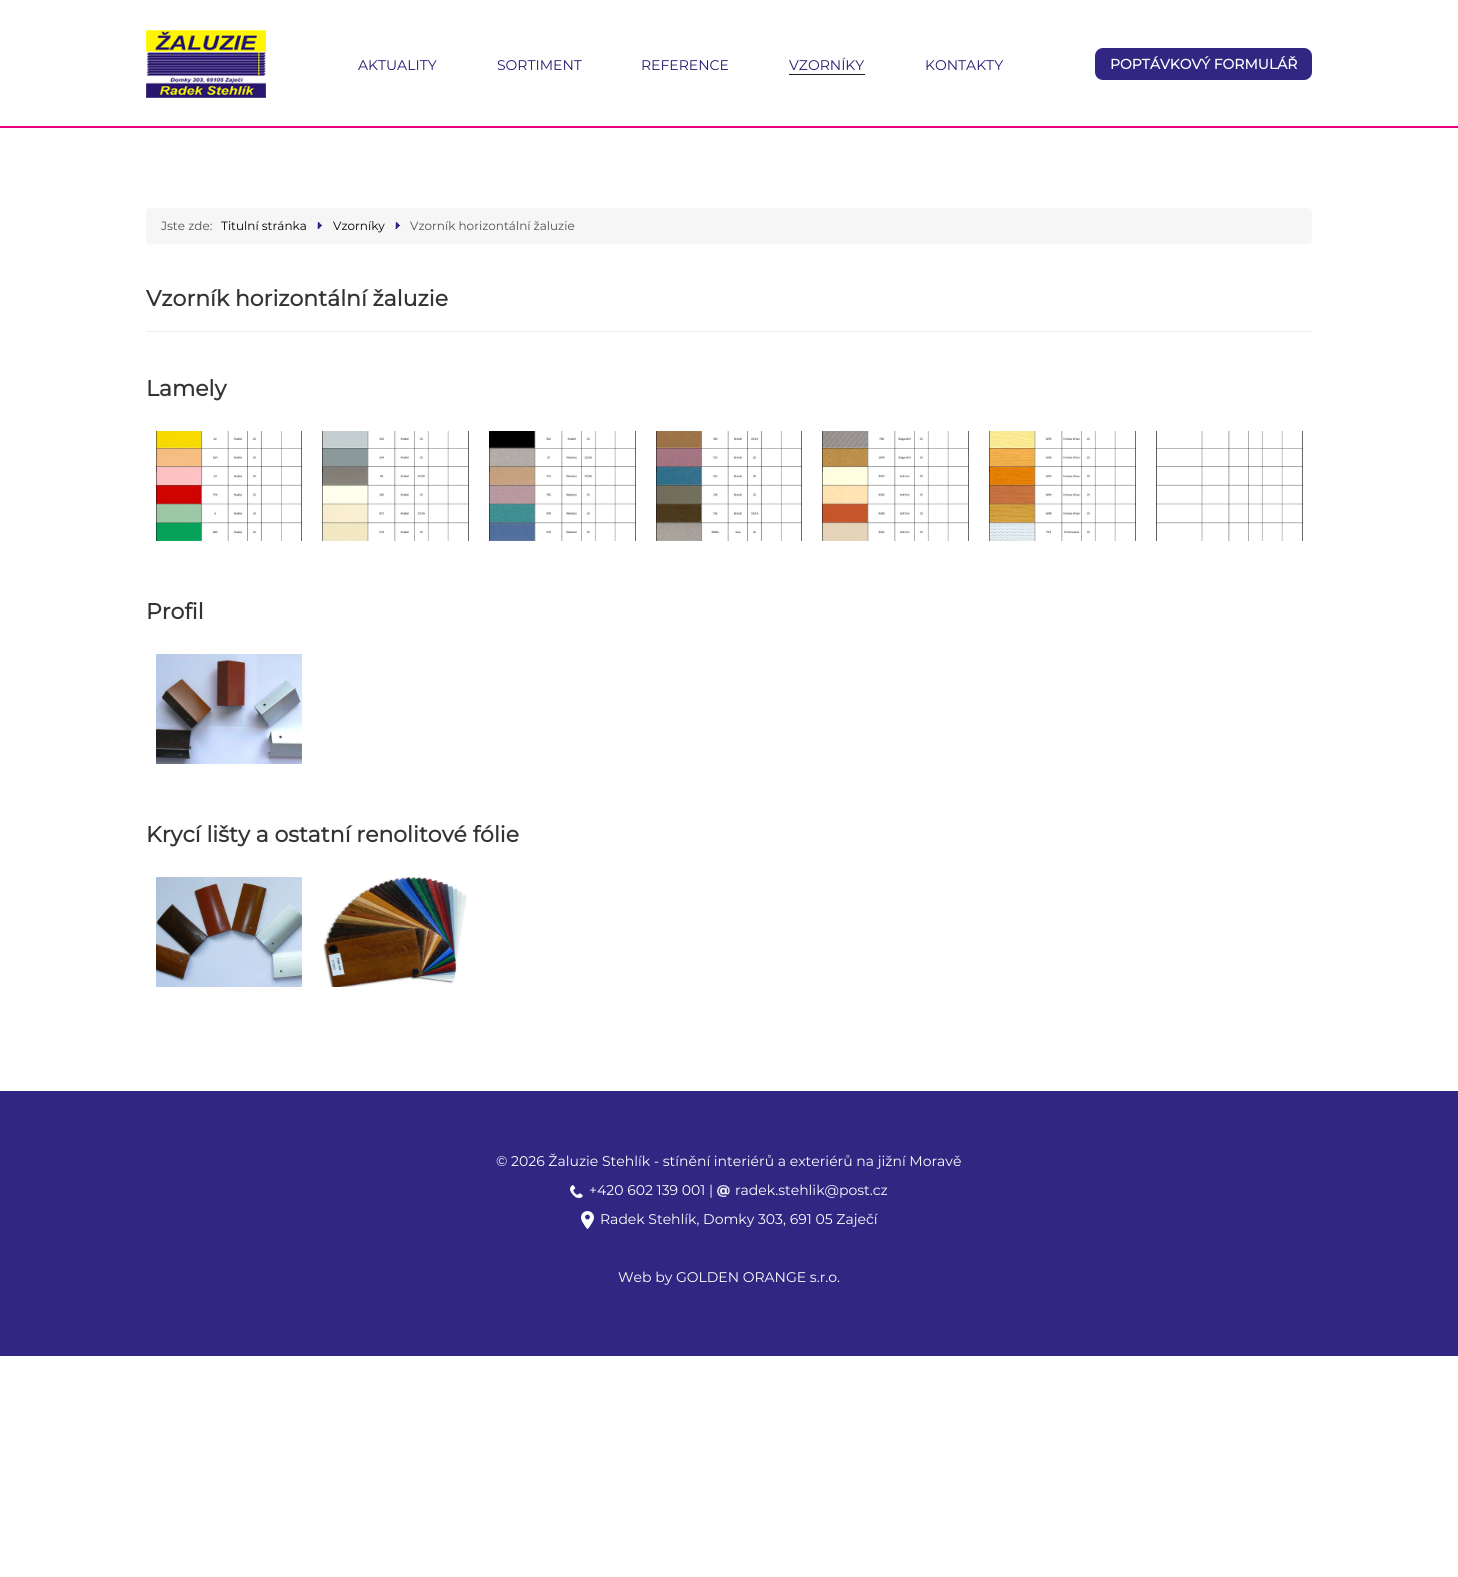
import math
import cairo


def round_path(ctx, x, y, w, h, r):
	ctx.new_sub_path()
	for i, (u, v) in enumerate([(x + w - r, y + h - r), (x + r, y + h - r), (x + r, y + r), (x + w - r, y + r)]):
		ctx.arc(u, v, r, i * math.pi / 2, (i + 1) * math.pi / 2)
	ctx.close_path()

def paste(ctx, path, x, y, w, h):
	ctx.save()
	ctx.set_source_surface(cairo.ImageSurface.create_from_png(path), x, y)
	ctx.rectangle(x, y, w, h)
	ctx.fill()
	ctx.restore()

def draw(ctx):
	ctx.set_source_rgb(1, 1, 1)
	ctx.paint()
	ctx.set_source_rgb(0.902, 0, 0.494)
	ctx.rectangle(0, 126, 1458, 2)
	ctx.fill()
	paste(ctx, 'media/1.png', 146, 30, 120, 68)
	ctx.select_font_face('Montserrat Thin')
	ctx.set_font_size(14)
	ctx.set_source_rgb(0.161, 0.086, 0.435)
	for x, y, s in [
		(358, 70, 'AKTUALITY'),
		(497, 70, 'SORTIMENT'),
		(641, 70, 'REFERENCE'),
	]:
		ctx.move_to(x, y)
		ctx.show_text(s)
	ctx.set_source_rgb(0.102, 0.102, 0.102)
	ctx.rectangle(789, 74, 76, 1)
	ctx.fill()
	ctx.set_source_rgb(0.161, 0.086, 0.435)
	ctx.move_to(789, 70)
	ctx.show_text('VZORNÍKY')
	ctx.move_to(925, 70)
	ctx.show_text('KONTAKTY')
	ctx.set_source_rgb(0.192, 0.153, 0.514)
	round_path(ctx, 1095, 48, 217, 32, 8)
	ctx.fill()
	ctx.select_font_face('Montserrat', cairo.FONT_SLANT_NORMAL, cairo.FONT_WEIGHT_BOLD)
	ctx.set_source_rgb(1, 1, 1)
	ctx.move_to(1110, 69)
	ctx.show_text('POPTÁVKOVÝ FORMULÁŘ')
	ctx.set_source_rgb(0.961, 0.961, 0.961)
	round_path(ctx, 146, 208, 1166, 36, 4)
	ctx.fill()
	ctx.select_font_face('Montserrat Thin')
	ctx.set_font_size(12)
	ctx.set_source_rgb(0.318, 0.318, 0.318)
	ctx.move_to(161, 230)
	ctx.show_text('Jste zde:')
	ctx.set_source_rgb(0, 0, 0)
	ctx.move_to(221, 230)
	ctx.show_text('Titulní stránka')
	paste(ctx, 'media/2.png', 317, 222, 6, 7)
	ctx.move_to(333, 230)
	ctx.show_text('Vzorníky')
	paste(ctx, 'media/2.png', 395, 222, 6, 7)
	ctx.set_source_rgb(0.318, 0.318, 0.318)
	ctx.move_to(410, 230)
	ctx.show_text('Vzorník horizontální žaluzie')
	ctx.set_source_rgb(0.933, 0.933, 0.933)
	ctx.rectangle(146, 331, 1166, 1)
	ctx.fill()
	ctx.select_font_face('Montserrat', cairo.FONT_SLANT_NORMAL, cairo.FONT_WEIGHT_BOLD)
	ctx.set_font_size(22)
	ctx.set_source_rgb(0.2, 0.2, 0.2)
	ctx.move_to(146, 306)
	ctx.show_text('Vzorník horizontální žaluzie')
	ctx.move_to(146, 396)
	ctx.show_text('Lamely')
	paste(ctx, 'media/3.png', 156, 431, 146, 110)
	paste(ctx, 'media/4.png', 322, 431, 147, 110)
	paste(ctx, 'media/5.png', 489, 431, 147, 110)
	paste(ctx, 'media/6.png', 656, 431, 146, 110)
	paste(ctx, 'media/7.png', 822, 431, 147, 110)
	paste(ctx, 'media/8.png', 989, 431, 147, 110)
	paste(ctx, 'media/9.png', 1156, 431, 147, 110)
	ctx.move_to(146, 619)
	ctx.show_text('Profil')
	paste(ctx, 'media/10.png', 156, 654, 146, 110)
	ctx.move_to(146, 842)
	ctx.show_text('Krycí lišty a ostatní renolitové fólie')
	paste(ctx, 'media/11.png', 156, 877, 146, 110)
	paste(ctx, 'media/12.png', 323, 877, 144, 110)
	ctx.set_source_rgb(0.192, 0.153, 0.514)
	ctx.rectangle(0, 1091, 1458, 265)
	ctx.fill()
	ctx.select_font_face('Montserrat Thin')
	ctx.set_font_size(14)
	ctx.set_source_rgb(1, 1, 1)
	ctx.move_to(496, 1166)
	ctx.show_text('© 2026 Žaluzie Stehlík - stínění interiérů a exteriérů na jižní Moravě')
	paste(ctx, 'media/13.png', 570, 1185, 13, 13)
	ctx.move_to(589, 1195)
	ctx.show_text('+420 602 139 001 |')
	paste(ctx, 'media/14.png', 717, 1185, 13, 12)
	ctx.move_to(735, 1195)
	ctx.show_text('radek.stehlik@post.cz')
	paste(ctx, 'media/15.png', 581, 1211, 13, 18)
	ctx.move_to(600, 1224)
	ctx.show_text('Radek Stehlík, Domky 303, 691 05 Zaječí')
	ctx.move_to(618, 1282)
	ctx.show_text('Web by GOLDEN ORANGE s.r.o.')


surface = cairo.ImageSurface(cairo.FORMAT_RGB24, 1458, 1577)
ctx = cairo.Context(surface)
options = cairo.FontOptions()
options.set_hint_metrics(cairo.HINT_METRICS_OFF)
options.set_hint_style(cairo.HINT_STYLE_NONE)
ctx.set_font_options(options)
ctx.set_miter_limit(4)
draw(ctx)
surface.write_to_png('image.png')
